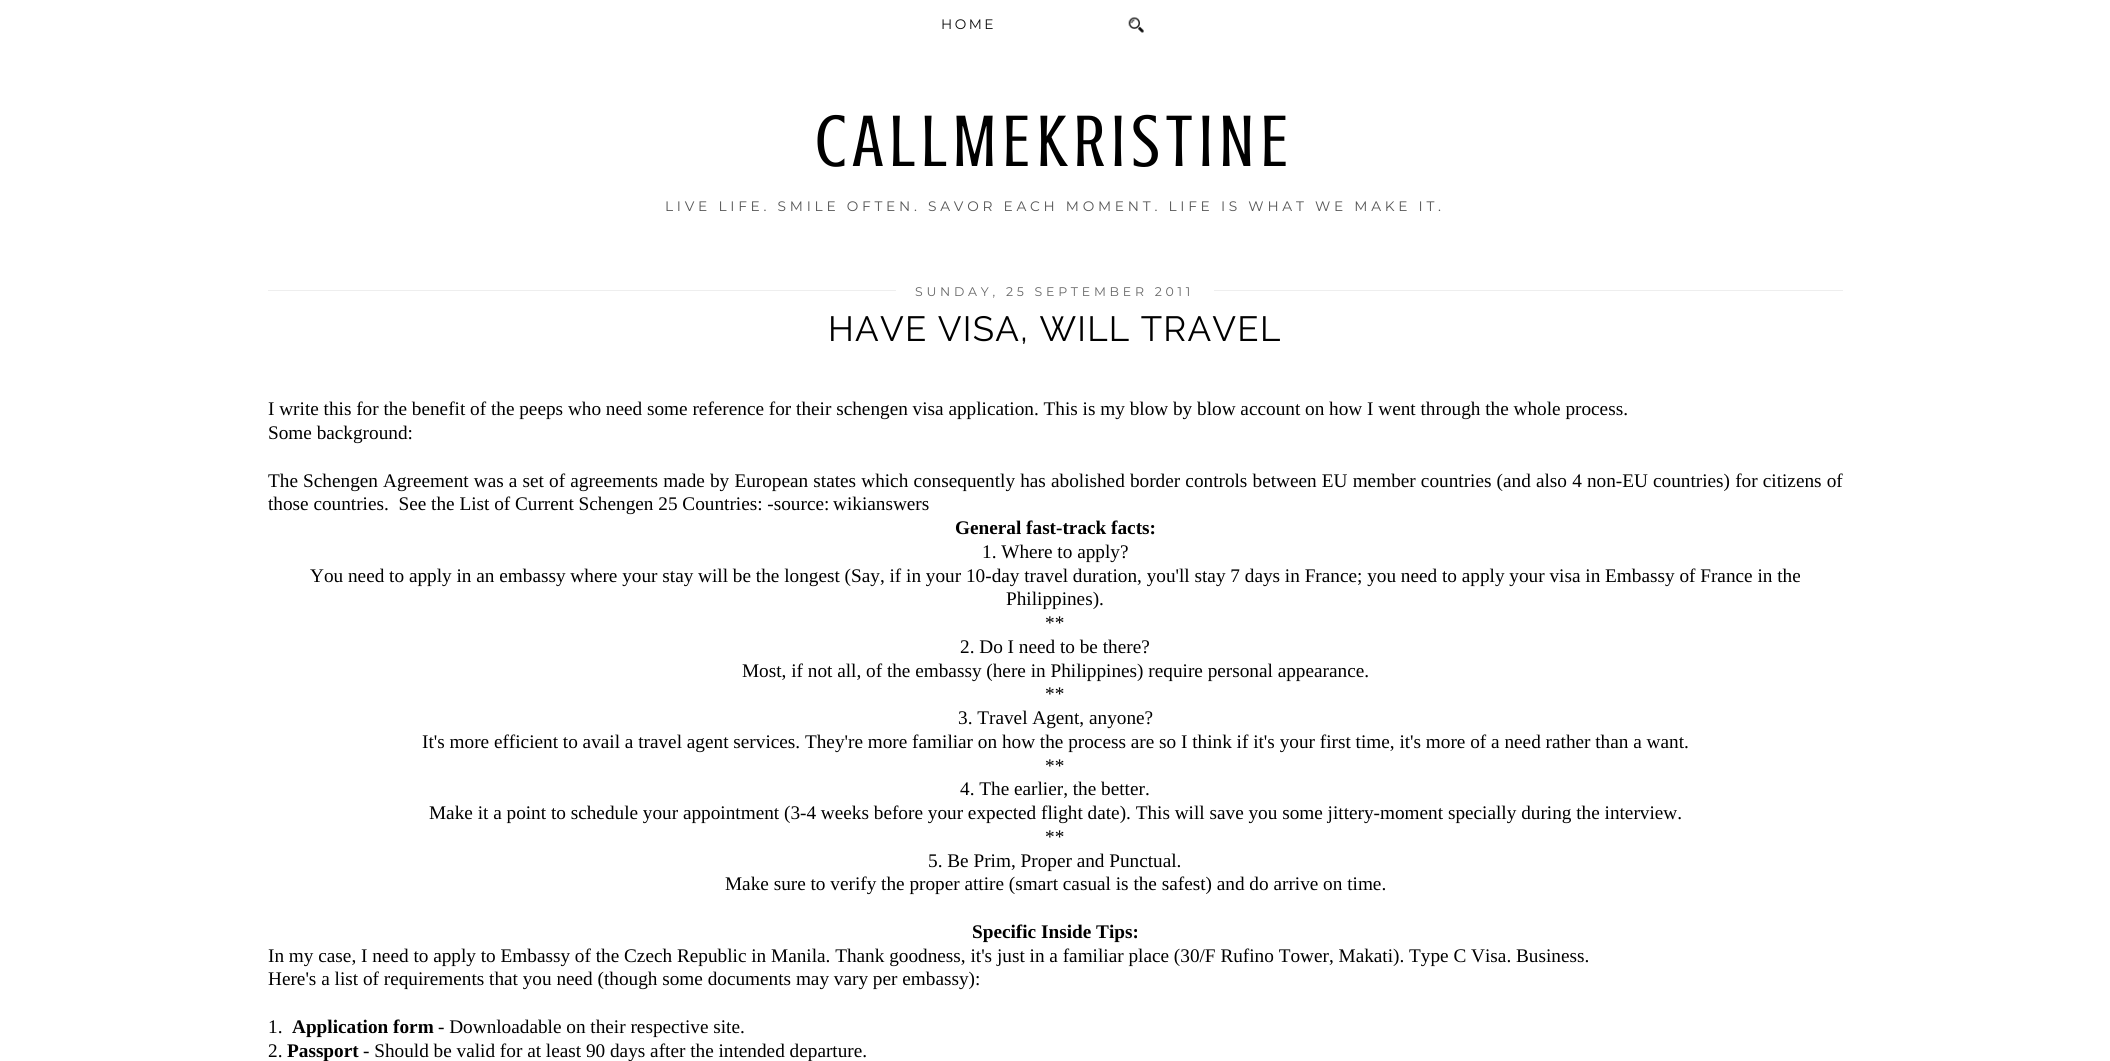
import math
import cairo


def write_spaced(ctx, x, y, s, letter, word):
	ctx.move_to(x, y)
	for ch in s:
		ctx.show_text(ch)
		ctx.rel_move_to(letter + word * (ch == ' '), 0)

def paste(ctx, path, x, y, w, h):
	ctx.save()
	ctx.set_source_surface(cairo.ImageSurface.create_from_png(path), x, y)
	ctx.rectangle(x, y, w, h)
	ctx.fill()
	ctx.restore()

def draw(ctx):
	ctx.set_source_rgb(1, 1, 1)
	ctx.paint()
	ctx.select_font_face('Montserrat Thin')
	ctx.set_font_size(13.75)
	ctx.set_source_rgb(0.051, 0.051, 0.051)
	write_spaced(ctx, 941, 29, 'HOME', 2.5, 0)
	paste(ctx, 'media/1.png', 1128, 17, 16, 16)
	ctx.select_font_face('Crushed')
	ctx.set_font_size(75)
	ctx.set_source_rgb(0, 0, 0)
	write_spaced(ctx, 815, 166, 'CALLMEKRISTINE', 6.25, 0)
	ctx.select_font_face('Montserrat Thin')
	ctx.set_font_size(13.75)
	ctx.set_source_rgb(0.333, 0.333, 0.333)
	write_spaced(ctx, 665, 211, 'LIVE LIFE. SMILE OFTEN. SAVOR EACH MOMENT. LIFE IS WHAT WE MAKE IT.', 3.75, 0)
	ctx.set_source_rgb(0.933, 0.933, 0.933)
	ctx.rectangle(268, 290, 1575, 1)
	ctx.fill()
	ctx.set_source_rgb(1, 1, 1)
	ctx.rectangle(896, 290, 318, 1)
	ctx.fill()
	ctx.set_font_size(12.5)
	ctx.set_source_rgb(0.4, 0.4, 0.4)
	write_spaced(ctx, 915, 296, 'SUNDAY, 25 SEPTEMBER 2011', 3.75, 0)
	ctx.select_font_face('Raleway')
	ctx.set_font_size(35)
	ctx.set_source_rgb(0, 0, 0)
	write_spaced(ctx, 828, 341, 'HAVE VISA, WILL TRAVEL', 1.25, 0)
	ctx.select_font_face('Liberation Serif')
	ctx.set_font_size(19.25)
	ctx.move_to(268, 415)
	ctx.show_text('I write this for the benefit of the peeps who need some reference for their schengen visa application. This is my blow by blow account on how I went through the whole process.')
	ctx.move_to(268, 439)
	ctx.show_text('Some background:')
	write_spaced(ctx, 268, 487, 'The Schengen Agreement was a set of agreements made by European states which consequently has abolished border controls between EU member countries (and also 4 non-EU countries) for citizens of', 0, 0.35)
	ctx.move_to(268, 510)
	ctx.show_text('those countries.  See the List of Current Schengen 25 Countries: -source:')
	ctx.move_to(833, 510)
	ctx.show_text('wikianswers')
	ctx.select_font_face('Liberation Serif', cairo.FONT_SLANT_NORMAL, cairo.FONT_WEIGHT_BOLD)
	ctx.move_to(955, 534)
	ctx.show_text('General fast-track facts:')
	ctx.select_font_face('Liberation Serif')
	for x, y, s in [
		(982, 558, '1. Where to apply?'),
		(310, 582, 'You need to apply in an embassy where your stay will be the longest (Say, if in your 10-day travel duration, you\'ll stay 7 days in France; you need to apply your visa in Embassy of France in the'),
		(1006, 605, 'Philippines).'),
		(1045, 629, '**'),
		(960, 653, '2. Do I need to be there?'),
		(742, 677, 'Most, if not all, of the embassy (here in Philippines) require personal appearance.'),
		(1045, 700, '**'),
		(958, 724, '3. Travel Agent, anyone?'),
		(422, 748, 'It\'s more efficient to avail a travel agent services. They\'re more familiar on how the process are so I think if it\'s your first time, it\'s more of a need rather than a want.'),
		(1045, 772, '**'),
		(960, 795, '4. The earlier, the better.'),
		(429, 819, 'Make it a point to schedule your appointment (3-4 weeks before your expected flight date). This will save you some jittery-moment specially during the interview.'),
		(1045, 843, '**'),
		(928, 867, '5. Be Prim, Proper and Punctual.'),
		(725, 890, 'Make sure to verify the proper attire (smart casual is the safest) and do arrive on time.'),
	]:
		ctx.move_to(x, y)
		ctx.show_text(s)
	ctx.select_font_face('Liberation Serif', cairo.FONT_SLANT_NORMAL, cairo.FONT_WEIGHT_BOLD)
	ctx.move_to(972, 938)
	ctx.show_text('Specific Inside Tips:')
	ctx.select_font_face('Liberation Serif')
	for x, y, s in [
		(268, 962, 'In my case, I need to apply to Embassy of the Czech Republic in Manila. Thank goodness, it\'s just in a familiar place (30/F Rufino Tower, Makati). Type C Visa. Business.'),
		(268, 985, 'Here\'s a list of requirements that you need (though some documents may vary per embassy):'),
		(268, 1033, '1.'),
	]:
		ctx.move_to(x, y)
		ctx.show_text(s)
	ctx.select_font_face('Liberation Serif', cairo.FONT_SLANT_NORMAL, cairo.FONT_WEIGHT_BOLD)
	ctx.move_to(292, 1033)
	ctx.show_text('Application form')
	ctx.select_font_face('Liberation Serif')
	ctx.move_to(438, 1033)
	ctx.show_text('- Downloadable on their respective site.')
	ctx.move_to(268, 1057)
	ctx.show_text('2.')
	ctx.select_font_face('Liberation Serif', cairo.FONT_SLANT_NORMAL, cairo.FONT_WEIGHT_BOLD)
	ctx.move_to(287, 1057)
	ctx.show_text('Passport')
	ctx.select_font_face('Liberation Serif')
	ctx.move_to(363, 1057)
	ctx.show_text('- Should be valid for at least 90 days after the intended departure.')


surface = cairo.ImageSurface(cairo.FORMAT_RGB24, 2110, 1061)
ctx = cairo.Context(surface)
options = cairo.FontOptions()
options.set_hint_metrics(cairo.HINT_METRICS_OFF)
options.set_hint_style(cairo.HINT_STYLE_NONE)
ctx.set_font_options(options)
ctx.set_miter_limit(4)
draw(ctx)
surface.write_to_png('image.png')
